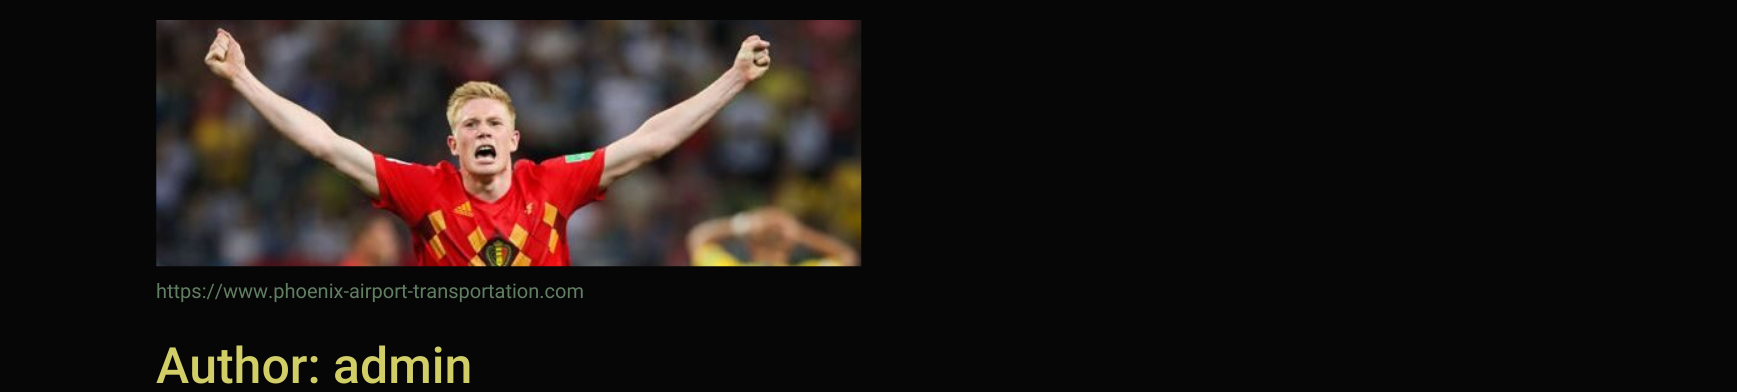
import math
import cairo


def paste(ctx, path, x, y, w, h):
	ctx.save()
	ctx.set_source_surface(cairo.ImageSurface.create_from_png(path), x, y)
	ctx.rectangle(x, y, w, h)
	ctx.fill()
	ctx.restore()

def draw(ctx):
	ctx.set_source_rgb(0.027, 0.027, 0.027)
	ctx.paint()
	paste(ctx, 'media/1.png', 156, 20, 706, 247)
	ctx.select_font_face('Roboto')
	ctx.set_font_size(20)
	ctx.set_source_rgb(0.38, 0.494, 0.388)
	ctx.move_to(156, 298)
	ctx.show_text('https://www.phoenix-airport-transportation.com')
	ctx.select_font_face('Roboto Medium')
	ctx.set_font_size(50)
	ctx.set_source_rgb(0.82, 0.804, 0.404)
	ctx.move_to(156, 383)
	ctx.show_text('Author: admin')


surface = cairo.ImageSurface(cairo.FORMAT_RGB24, 1737, 392)
ctx = cairo.Context(surface)
options = cairo.FontOptions()
options.set_hint_metrics(cairo.HINT_METRICS_OFF)
options.set_hint_style(cairo.HINT_STYLE_NONE)
ctx.set_font_options(options)
ctx.set_miter_limit(4)
draw(ctx)
surface.write_to_png('image.png')
